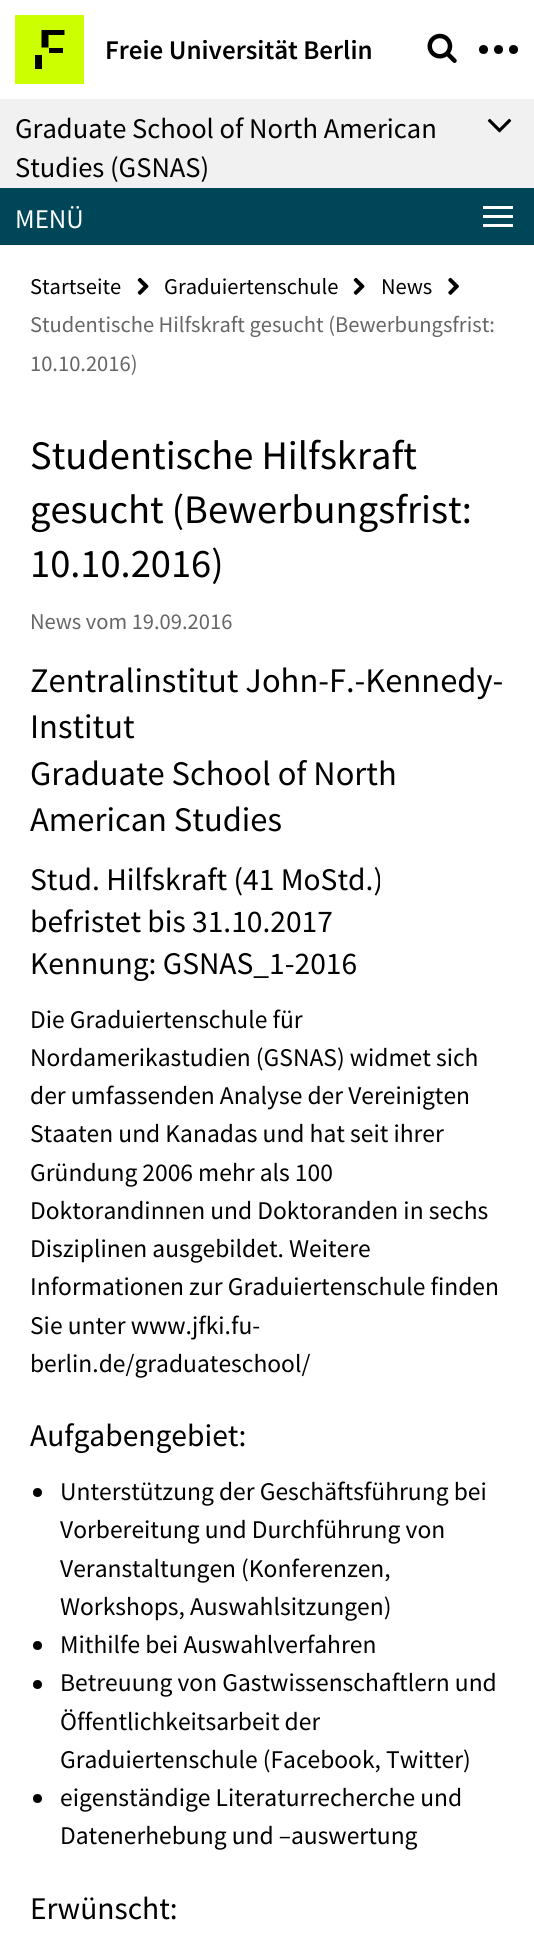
import math
import cairo


def paste(ctx, path, x, y, w, h):
	ctx.save()
	ctx.set_source_surface(cairo.ImageSurface.create_from_png(path), x, y)
	ctx.rectangle(x, y, w, h)
	ctx.fill()
	ctx.restore()

def draw(ctx):
	ctx.set_source_rgb(1, 1, 1)
	ctx.paint()
	ctx.set_source_rgb(0.8, 1, 0)
	ctx.rectangle(15, 15, 69, 69)
	ctx.fill()
	ctx.set_source_rgb(0, 0, 0)
	ctx.new_path()
	ctx.move_to(41.5, 30)
	ctx.line_to(64.5, 30)
	ctx.line_to(64.5, 35)
	ctx.line_to(48.5, 35)
	ctx.line_to(48.5, 47.5)
	ctx.line_to(41.5, 47.5)
	ctx.close_path()
	ctx.fill()
	ctx.rectangle(49, 48, 14, 5)
	ctx.fill()
	ctx.rectangle(35, 55, 7, 14)
	ctx.fill()
	ctx.select_font_face('Source Sans Pro SemiBold')
	ctx.set_font_size(27)
	ctx.move_to(105, 59)
	ctx.show_text('Freie Universität Berlin')
	paste(ctx, 'media/1.png', 427, 33, 30, 30)
	ctx.arc(483.5, 49.5, 4.5, 0, 2 * math.pi)
	ctx.fill()
	ctx.arc(498.5, 49.5, 4.5, 0, 2 * math.pi)
	ctx.fill()
	ctx.arc(513.5, 49.5, 4.5, 0, 2 * math.pi)
	ctx.fill()
	ctx.set_source_rgb(0.945, 0.945, 0.945)
	ctx.rectangle(0, 99, 534, 89)
	ctx.fill()
	ctx.select_font_face('Source Sans Pro')
	ctx.set_font_size(28.5)
	ctx.set_source_rgb(0, 0, 0)
	ctx.move_to(15, 138)
	ctx.show_text('Graduate School of North American')
	ctx.move_to(15, 177)
	ctx.show_text('Studies (GSNAS)')
	paste(ctx, 'media/2.png', 487, 118, 25, 15)
	ctx.set_source_rgb(0, 0.275, 0.349)
	ctx.rectangle(0, 188, 534, 57)
	ctx.fill()
	ctx.set_font_size(27)
	ctx.set_source_rgb(1, 1, 1)
	ctx.move_to(15, 228)
	ctx.show_text('MENÜ')
	ctx.rectangle(483, 206, 30, 3)
	ctx.rectangle(483, 215, 30, 3)
	ctx.rectangle(483, 224, 30, 3)
	ctx.fill()
	ctx.set_font_size(22.5)
	ctx.set_source_rgb(0, 0, 0)
	ctx.move_to(30, 294)
	ctx.show_text('Startseite')
	paste(ctx, 'media/3.png', 137, 277, 12, 18)
	ctx.move_to(164, 294)
	ctx.show_text('Graduiertenschule')
	paste(ctx, 'media/3.png', 353, 277, 12, 18)
	ctx.move_to(381, 294)
	ctx.show_text('News')
	paste(ctx, 'media/4.png', 448, 277, 11, 18)
	ctx.set_source_rgb(0.4, 0.4, 0.4)
	ctx.move_to(30, 332)
	ctx.show_text('Studentische Hilfskraft gesucht (Bewerbungsfrist:')
	ctx.move_to(30, 371)
	ctx.show_text('10.10.2016)')
	ctx.set_font_size(40.5)
	ctx.set_source_rgb(0, 0, 0)
	for x, y, s in [
		(30, 469, 'Studentische Hilfskraft'),
		(30, 523, 'gesucht (Bewerbungsfrist:'),
		(30, 577, '10.10.2016)'),
	]:
		ctx.move_to(x, y)
		ctx.show_text(s)
	ctx.set_font_size(22.5)
	ctx.set_source_rgb(0.4, 0.4, 0.4)
	ctx.move_to(30, 629)
	ctx.show_text('News vom 19.09.2016')
	ctx.set_font_size(34.5)
	ctx.set_source_rgb(0, 0, 0)
	for x, y, s in [
		(30, 692, 'Zentralinstitut John-F.-Kennedy-'),
		(30, 738, 'Institut'),
		(30, 785, 'Graduate School of North'),
		(30, 831, 'American Studies'),
	]:
		ctx.move_to(x, y)
		ctx.show_text(s)
	ctx.set_font_size(31.5)
	for x, y, s in [
		(30, 890, 'Stud. Hilfskraft (41 MoStd.)'),
		(30, 932, 'befristet bis 31.10.2017'),
		(30, 974, 'Kennung: GSNAS_1-2016'),
	]:
		ctx.move_to(x, y)
		ctx.show_text(s)
	ctx.set_font_size(25.5)
	for x, y, s in [
		(30, 1028, 'Die Graduiertenschule für'),
		(30, 1066, 'Nordamerikastudien (GSNAS) widmet sich'),
		(30, 1104, 'der umfassenden Analyse der Vereinigten'),
		(30, 1142, 'Staaten und Kanadas und hat seit ihrer'),
		(30, 1181, 'Gründung 2006 mehr als 100'),
		(30, 1219, 'Doktorandinnen und Doktoranden in sechs'),
		(30, 1257, 'Disziplinen ausgebildet. Weitere'),
		(30, 1295, 'Informationen zur Graduiertenschule finden'),
		(30, 1334, 'Sie unter www.jfki.fu-'),
		(30, 1372, 'berlin.de/graduateschool/'),
	]:
		ctx.move_to(x, y)
		ctx.show_text(s)
	ctx.set_font_size(31.5)
	ctx.move_to(30, 1446)
	ctx.show_text('Aufgabengebiet:')
	ctx.new_path()
	ctx.arc(37.5, 1492.5, 4.5, 0, 2 * math.pi)
	ctx.fill()
	ctx.set_font_size(25.5)
	for x, y, s in [
		(60, 1500, 'Unterstützung der Geschäftsführung bei'),
		(60, 1538, 'Vorbereitung und Durchführung von'),
		(60, 1577, 'Veranstaltungen (Konferenzen,'),
		(60, 1615, 'Workshops, Auswahlsitzungen)'),
	]:
		ctx.move_to(x, y)
		ctx.show_text(s)
	ctx.new_path()
	ctx.arc(37.5, 1645.5, 4.5, 0, 2 * math.pi)
	ctx.fill()
	ctx.move_to(60, 1653)
	ctx.show_text('Mithilfe bei Auswahlverfahren')
	ctx.new_path()
	ctx.arc(37.5, 1684.5, 4.5, 0, 2 * math.pi)
	ctx.fill()
	for x, y, s in [
		(60, 1691, 'Betreuung von Gastwissenschaftlern und'),
		(60, 1730, 'Öffentlichkeitsarbeit der'),
		(60, 1768, 'Graduiertenschule (Facebook, Twitter)'),
	]:
		ctx.move_to(x, y)
		ctx.show_text(s)
	ctx.new_path()
	ctx.arc(37.5, 1798.5, 4.5, 0, 2 * math.pi)
	ctx.fill()
	ctx.move_to(60, 1806)
	ctx.show_text('eigenständige Literaturrecherche und')
	ctx.move_to(60, 1844)
	ctx.show_text('Datenerhebung und –auswertung')
	ctx.set_font_size(31.5)
	ctx.move_to(30, 1919)
	ctx.show_text('Erwünscht:')


surface = cairo.ImageSurface(cairo.FORMAT_RGB24, 534, 1949)
ctx = cairo.Context(surface)
options = cairo.FontOptions()
options.set_hint_metrics(cairo.HINT_METRICS_OFF)
options.set_hint_style(cairo.HINT_STYLE_NONE)
ctx.set_font_options(options)
ctx.set_miter_limit(4)
draw(ctx)
surface.write_to_png('image.png')
